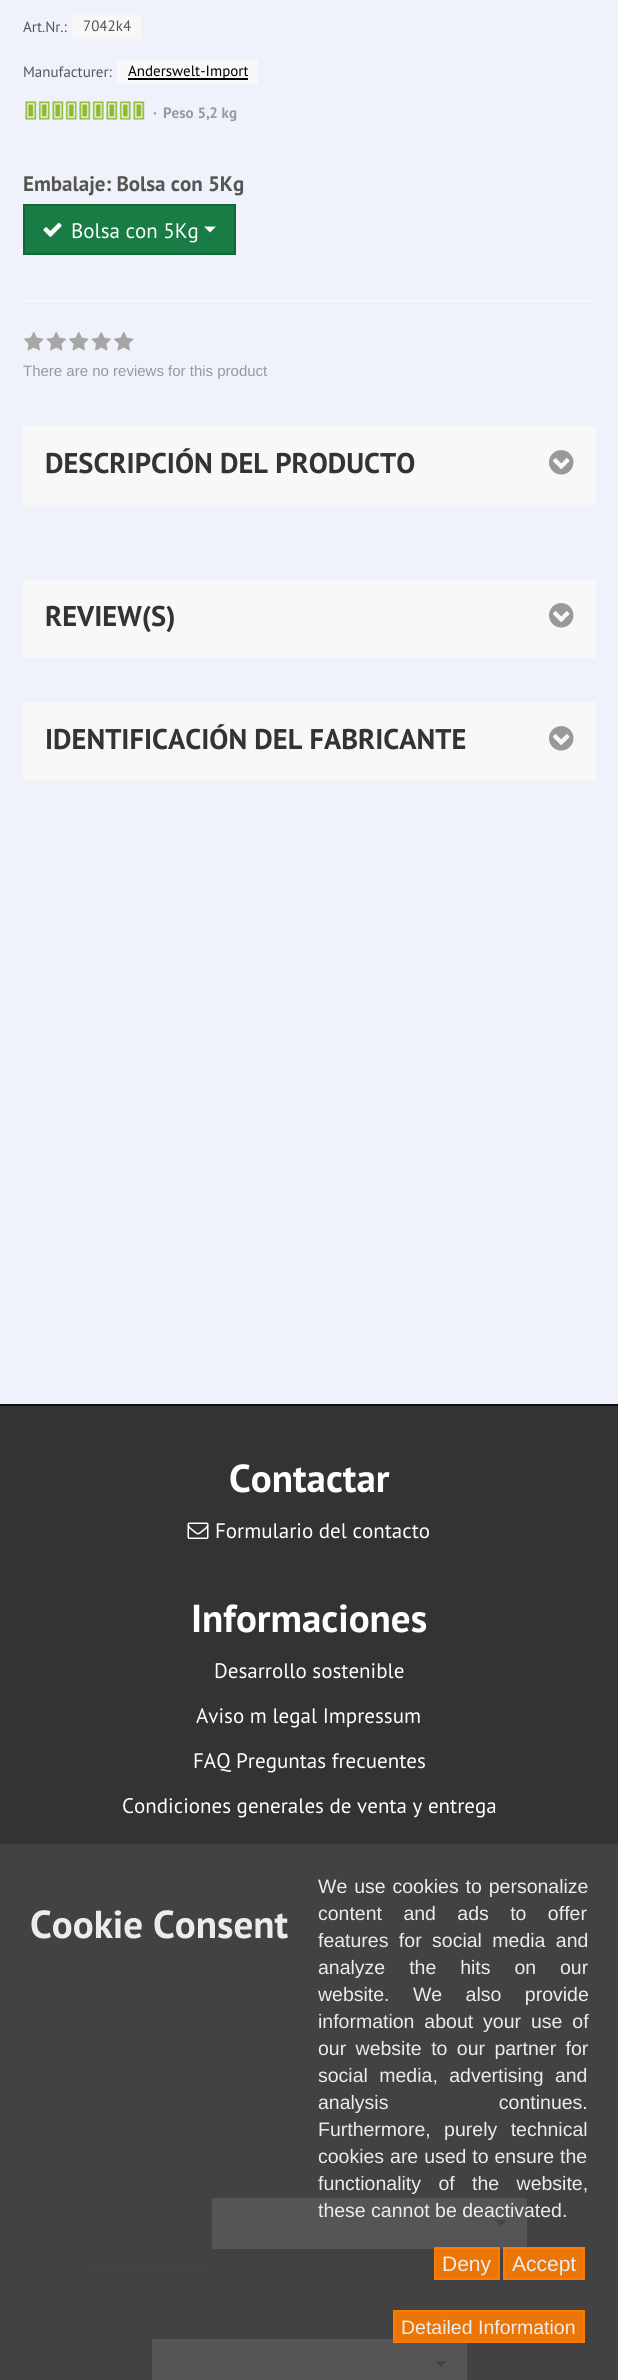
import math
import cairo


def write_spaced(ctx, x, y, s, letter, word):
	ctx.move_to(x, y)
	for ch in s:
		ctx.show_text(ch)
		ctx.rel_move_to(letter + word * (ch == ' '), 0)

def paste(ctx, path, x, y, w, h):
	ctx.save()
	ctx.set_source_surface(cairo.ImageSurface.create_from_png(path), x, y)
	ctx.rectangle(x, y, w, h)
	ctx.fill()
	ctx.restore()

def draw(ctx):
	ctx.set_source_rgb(0.937, 0.949, 0.984)
	ctx.paint()
	ctx.select_font_face('PT Sans')
	ctx.set_font_size(15)
	ctx.set_source_rgb(0.333, 0.333, 0.333)
	ctx.move_to(23, 32)
	ctx.show_text('Art.Nr.:')
	ctx.set_source_rgb(0.969, 0.969, 0.969)
	ctx.rectangle(72, 15, 69, 24)
	ctx.fill()
	ctx.set_source_rgb(0.333, 0.333, 0.333)
	ctx.move_to(83, 31)
	ctx.show_text('7042k4')
	ctx.move_to(23, 77)
	ctx.show_text('Manufacturer:')
	ctx.set_source_rgb(0.969, 0.969, 0.969)
	ctx.rectangle(117, 60, 141, 24)
	ctx.fill()
	ctx.set_source_rgb(0, 0, 0)
	ctx.rectangle(128, 78, 120, 2)
	ctx.fill()
	ctx.move_to(128, 76)
	ctx.show_text('Anderswelt-Import')
	paste(ctx, 'media/1.png', 25, 101, 120, 19)
	ctx.select_font_face('PT Sans', cairo.FONT_SLANT_NORMAL, cairo.FONT_WEIGHT_BOLD)
	ctx.set_source_rgb(0.6, 0.6, 0.6)
	ctx.move_to(153, 118)
	ctx.show_text('·')
	ctx.move_to(163, 118)
	ctx.show_text('Peso 5,2 kg')
	ctx.set_font_size(21)
	ctx.set_source_rgb(0.333, 0.333, 0.333)
	ctx.move_to(23, 191)
	ctx.show_text('Embalaje: Bolsa con 5Kg')
	ctx.set_source_rgb(0.098, 0.486, 0.271)
	ctx.rectangle(24, 205, 211, 49)
	ctx.fill_preserve()
	ctx.set_source_rgb(0.082, 0.404, 0.224)
	ctx.stroke()
	paste(ctx, 'media/2.png', 43, 222, 19, 15)
	ctx.select_font_face('PT Sans')
	ctx.set_source_rgb(1, 1, 1)
	ctx.move_to(71, 238)
	ctx.show_text('Bolsa con 5Kg')
	ctx.new_path()
	ctx.move_to(204, 226.5)
	ctx.line_to(216, 226.5)
	ctx.line_to(210, 232.5)
	ctx.close_path()
	ctx.fill()
	ctx.set_source_rgb(0.969, 0.969, 0.969)
	ctx.rectangle(23, 300, 573, 2)
	ctx.fill()
	paste(ctx, 'media/3.png', 24, 332, 20, 19)
	paste(ctx, 'media/4.png', 46, 332, 20, 19)
	paste(ctx, 'media/3.png', 69, 332, 20, 19)
	paste(ctx, 'media/4.png', 91, 332, 20, 19)
	paste(ctx, 'media/3.png', 114, 332, 20, 19)
	paste(ctx, 'media/5.png', 24, 338, 1, 3)
	ctx.select_font_face('Liberation Sans')
	ctx.set_font_size(15)
	ctx.set_source_rgb(0.6, 0.6, 0.6)
	ctx.move_to(23, 376)
	ctx.show_text('There are no reviews for this product')
	ctx.set_source_rgb(0.969, 0.969, 0.969)
	ctx.rectangle(23, 426, 573, 79)
	ctx.fill()
	ctx.select_font_face('PT Sans', cairo.FONT_SLANT_NORMAL, cairo.FONT_WEIGHT_BOLD)
	ctx.set_font_size(28.5)
	ctx.set_source_rgb(0.2, 0.2, 0.2)
	ctx.move_to(45, 473)
	ctx.show_text('DESCRIPCIÓN DEL PRODUCTO')
	paste(ctx, 'media/6.png', 549, 450, 25, 25)
	ctx.set_source_rgb(0.969, 0.969, 0.969)
	ctx.rectangle(23, 579, 573, 79)
	ctx.fill()
	ctx.set_source_rgb(0.2, 0.2, 0.2)
	ctx.move_to(45, 626)
	ctx.show_text('REVIEW(S)')
	paste(ctx, 'media/6.png', 549, 603, 25, 25)
	ctx.set_source_rgb(0.969, 0.969, 0.969)
	ctx.rectangle(23, 702, 573, 79)
	ctx.fill()
	ctx.set_source_rgb(0.2, 0.2, 0.2)
	ctx.move_to(45, 749)
	ctx.show_text('IDENTIFICACIÓN DEL FABRICANTE')
	paste(ctx, 'media/6.png', 549, 726, 25, 25)
	ctx.rectangle(0, 1406, 618, 974)
	ctx.fill()
	ctx.set_source_rgb(0.051, 0.051, 0.051)
	ctx.rectangle(0, 1404, 618, 2)
	ctx.fill()
	ctx.set_font_size(39)
	ctx.set_source_rgb(1, 1, 1)
	ctx.move_to(229, 1492)
	ctx.show_text('Contactar')
	paste(ctx, 'media/7.png', 187, 1522, 22, 17)
	ctx.select_font_face('PT Sans')
	ctx.set_font_size(21)
	ctx.move_to(215, 1538)
	ctx.show_text('Formulario del contacto')
	ctx.select_font_face('PT Sans', cairo.FONT_SLANT_NORMAL, cairo.FONT_WEIGHT_BOLD)
	ctx.set_font_size(39)
	ctx.move_to(191, 1632)
	ctx.show_text('Informaciones')
	ctx.select_font_face('PT Sans')
	ctx.set_font_size(21)
	for x, y, s in [
		(214, 1678, 'Desarrollo sostenible'),
		(196, 1723, 'Aviso m legal Impressum'),
		(193, 1768, 'FAQ Preguntas frecuentes'),
		(122, 1813, 'Condiciones generales de venta y entrega'),
	]:
		ctx.move_to(x, y)
		ctx.show_text(s)
	ctx.set_source_rgb(0.969, 0.969, 0.969)
	ctx.rectangle(212, 2198, 315, 51)
	ctx.fill()
	ctx.set_source_rgb(0.333, 0.333, 0.333)
	ctx.new_path()
	ctx.move_to(495, 2220)
	ctx.line_to(507, 2220)
	ctx.line_to(501, 2226)
	ctx.close_path()
	ctx.fill()
	ctx.set_source_rgb(0.302, 0.302, 0.302)
	ctx.rectangle(92, 2267, 115, 2)
	ctx.fill()
	ctx.set_source_rgb(0.969, 0.969, 0.969)
	ctx.rectangle(152, 2339, 315, 41)
	ctx.fill()
	ctx.set_source_rgb(0.333, 0.333, 0.333)
	ctx.new_path()
	ctx.move_to(435, 2361)
	ctx.line_to(447, 2361)
	ctx.line_to(441, 2367)
	ctx.close_path()
	ctx.fill()
	ctx.set_source_rgba(0.267, 0.267, 0.267, 0.9)
	ctx.rectangle(0, 1844, 618, 536)
	ctx.fill()
	ctx.select_font_face('PT Sans', cairo.FONT_SLANT_NORMAL, cairo.FONT_WEIGHT_BOLD)
	ctx.set_font_size(39)
	ctx.set_source_rgb(0.925, 0.925, 0.925)
	ctx.move_to(30, 1938)
	ctx.show_text('Cookie Consent')
	ctx.select_font_face('Liberation Sans')
	ctx.set_font_size(19.5)
	write_spaced(ctx, 318, 1893, 'We use cookies to personalize', 0, 1.5)
	write_spaced(ctx, 318, 1920, 'content and ads to offer', 0, 16)
	write_spaced(ctx, 318, 1947, 'features for social media and', 0, 5)
	write_spaced(ctx, 318, 1974, 'analyze the hits on our', 0, 18.5)
	write_spaced(ctx, 318, 2001, 'website. We also provide', 0, 18)
	write_spaced(ctx, 318, 2028, 'information about your use of', 0, 4.5)
	write_spaced(ctx, 318, 2055, 'our website to our partner for', 0, 4)
	write_spaced(ctx, 318, 2082, 'social media, advertising and', 0, 6)
	write_spaced(ctx, 318, 2109, 'analysis continues.', 0, 105)
	write_spaced(ctx, 318, 2136, 'Furthermore, purely technical', 0, 8)
	write_spaced(ctx, 318, 2163, 'cookies are used to ensure the', 0, 0.5)
	write_spaced(ctx, 318, 2190, 'functionality of the website,', 0, 12)
	ctx.move_to(318, 2217)
	ctx.show_text('these cannot be deactivated.')
	ctx.set_source_rgba(1, 0.486, 0.008, 0.9)
	ctx.rectangle(435, 2248, 64, 31)
	ctx.fill_preserve()
	ctx.set_source_rgb(0.992, 0.482, 0.004)
	ctx.stroke()
	ctx.set_font_size(21)
	ctx.set_source_rgb(0.925, 0.925, 0.925)
	ctx.move_to(442, 2271)
	ctx.show_text('Deny')
	ctx.set_source_rgba(1, 0.486, 0.008, 0.9)
	ctx.rectangle(504, 2248, 80, 31)
	ctx.fill_preserve()
	ctx.set_source_rgb(0.992, 0.482, 0.004)
	ctx.stroke()
	ctx.set_source_rgb(0.925, 0.925, 0.925)
	ctx.move_to(512, 2271)
	ctx.show_text('Accept')
	ctx.set_source_rgba(1, 0.486, 0.008, 0.9)
	ctx.rectangle(394, 2311, 190, 31)
	ctx.fill_preserve()
	ctx.set_source_rgb(0.992, 0.482, 0.004)
	ctx.stroke()
	ctx.set_font_size(19.5)
	ctx.set_source_rgb(0.925, 0.925, 0.925)
	ctx.move_to(401, 2334)
	ctx.show_text('Detailed Information')


surface = cairo.ImageSurface(cairo.FORMAT_RGB24, 618, 2380)
ctx = cairo.Context(surface)
options = cairo.FontOptions()
options.set_hint_metrics(cairo.HINT_METRICS_OFF)
options.set_hint_style(cairo.HINT_STYLE_NONE)
ctx.set_font_options(options)
ctx.set_miter_limit(4)
draw(ctx)
surface.write_to_png('image.png')
